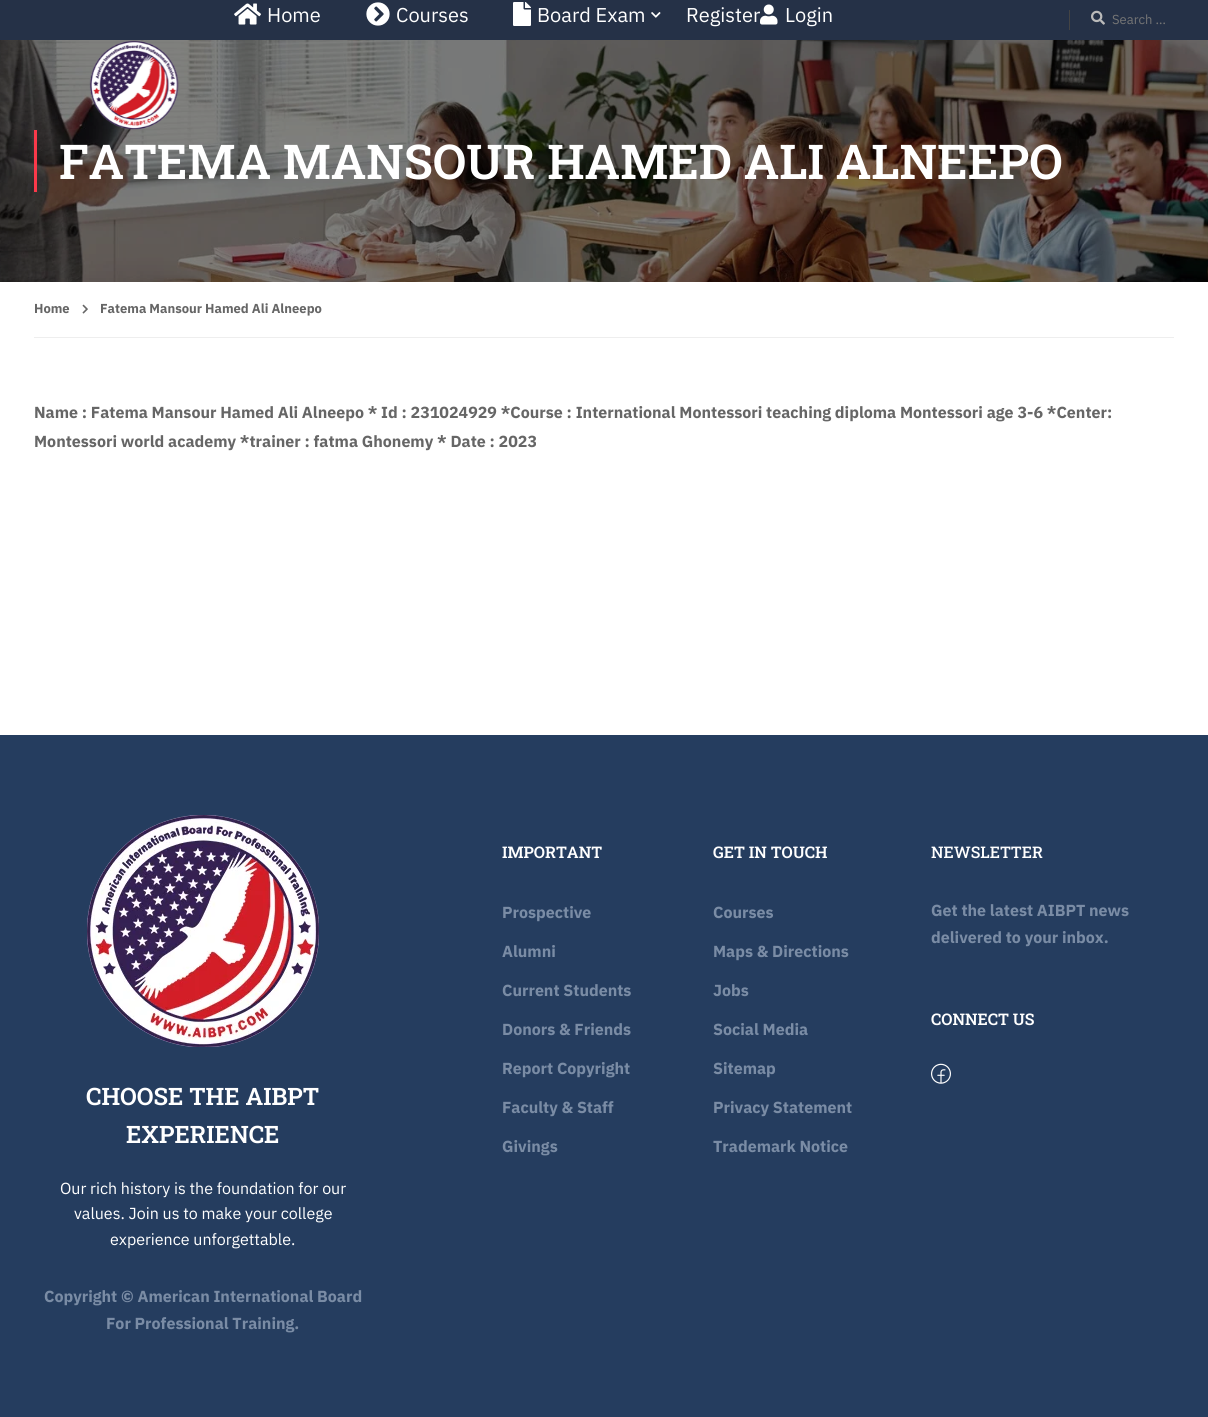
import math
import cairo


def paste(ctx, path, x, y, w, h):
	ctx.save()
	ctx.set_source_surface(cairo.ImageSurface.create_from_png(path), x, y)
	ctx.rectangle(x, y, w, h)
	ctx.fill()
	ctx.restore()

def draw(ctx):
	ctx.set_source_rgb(1, 1, 1)
	ctx.paint()
	ctx.set_source_rgb(0.145, 0.192, 0.278)
	ctx.rectangle(0, 0, 1208, 40)
	ctx.fill()
	paste(ctx, 'media/1.png', 234, 3, 27, 22)
	ctx.select_font_face('IBM Plex Sans')
	ctx.set_font_size(20)
	ctx.set_source_rgb(1, 1, 1)
	ctx.move_to(267, 22)
	ctx.show_text('Home')
	paste(ctx, 'media/2.png', 366, 2, 24, 24)
	ctx.move_to(396, 22)
	ctx.show_text('Courses')
	paste(ctx, 'media/3.png', 513, 2, 18, 24)
	ctx.move_to(537, 22)
	ctx.show_text('Board Exam')
	paste(ctx, 'media/4.png', 651, 12, 10, 6)
	ctx.move_to(686, 22)
	ctx.show_text('Register')
	paste(ctx, 'media/5.png', 760, 4, 18, 21)
	ctx.move_to(785, 22)
	ctx.show_text('Login')
	ctx.set_source_rgb(0.267, 0.267, 0.267)
	ctx.rectangle(1069, 10, 1, 20)
	ctx.fill()
	paste(ctx, 'media/6.png', 1091, 10, 14, 15)
	ctx.set_font_size(13)
	ctx.set_source_rgb(0.459, 0.459, 0.459)
	ctx.move_to(1112, 24)
	ctx.show_text('Search …')
	paste(ctx, 'media/8.png', 0, 40, 1208, 242)
	paste(ctx, 'media/7.png', 89, 40, 90, 90)
	ctx.set_source_rgb(0.98, 0.224, 0.29)
	ctx.rectangle(34, 130, 3, 62)
	ctx.fill()
	ctx.select_font_face('Roboto Slab SemiBold')
	ctx.set_font_size(48)
	ctx.set_source_rgb(1, 1, 1)
	ctx.move_to(59, 179)
	ctx.show_text('FATEMA MANSOUR HAMED ALI ALNEEPO')
	ctx.set_source_rgb(0.933, 0.933, 0.933)
	ctx.rectangle(34, 337, 1140, 1)
	ctx.fill()
	ctx.select_font_face('IBM Plex Sans', cairo.FONT_SLANT_NORMAL, cairo.FONT_WEIGHT_BOLD)
	ctx.set_font_size(13)
	ctx.set_source_rgb(0.4, 0.4, 0.4)
	ctx.move_to(34, 313)
	ctx.show_text('Home')
	paste(ctx, 'media/9.png', 82, 304, 6, 10)
	ctx.move_to(100, 313)
	ctx.show_text('Fatema Mansour Hamed Ali Alneepo')
	ctx.set_font_size(16)
	ctx.move_to(34, 418)
	ctx.show_text('Name : Fatema Mansour Hamed Ali Alneepo * Id : 231024929 *Course : International Montessori teaching diploma Montessori age 3-6 *Center:')
	ctx.move_to(34, 447)
	ctx.show_text('Montessori world academy *trainer : fatma Ghonemy * Date : 2023')
	ctx.set_source_rgb(0.145, 0.239, 0.373)
	ctx.rectangle(0, 735, 1208, 682)
	ctx.fill()
	ctx.select_font_face('Roboto Slab SemiBold')
	ctx.set_source_rgb(1, 1, 1)
	ctx.move_to(502, 858)
	ctx.show_text('IMPORTANT')
	ctx.select_font_face('IBM Plex Sans', cairo.FONT_SLANT_NORMAL, cairo.FONT_WEIGHT_BOLD)
	ctx.set_source_rgb(0.478, 0.549, 0.647)
	for x, y, s in [
		(502, 918, 'Prospective'),
		(502, 957, 'Alumni'),
		(502, 996, 'Current Students'),
		(502, 1035, 'Donors & Friends'),
		(502, 1074, 'Report Copyright'),
		(502, 1113, 'Faculty & Staff'),
		(502, 1152, 'Givings'),
	]:
		ctx.move_to(x, y)
		ctx.show_text(s)
	ctx.select_font_face('Roboto Slab SemiBold')
	ctx.set_source_rgb(1, 1, 1)
	ctx.move_to(713, 858)
	ctx.show_text('GET IN TOUCH')
	ctx.select_font_face('IBM Plex Sans', cairo.FONT_SLANT_NORMAL, cairo.FONT_WEIGHT_BOLD)
	ctx.set_source_rgb(0.478, 0.549, 0.647)
	for x, y, s in [
		(713, 918, 'Courses'),
		(713, 957, 'Maps & Directions'),
		(713, 996, 'Jobs'),
		(713, 1035, 'Social Media'),
		(713, 1074, 'Sitemap'),
		(713, 1113, 'Privacy Statement'),
		(713, 1152, 'Trademark Notice'),
	]:
		ctx.move_to(x, y)
		ctx.show_text(s)
	ctx.select_font_face('Roboto Slab Medium')
	ctx.set_source_rgb(1, 1, 1)
	ctx.move_to(931, 858)
	ctx.show_text('NEWSLETTER')
	ctx.select_font_face('IBM Plex Sans', cairo.FONT_SLANT_NORMAL, cairo.FONT_WEIGHT_BOLD)
	ctx.set_source_rgb(0.478, 0.549, 0.647)
	ctx.move_to(931, 916)
	ctx.show_text('Get the latest AIBPT news')
	ctx.move_to(931, 943)
	ctx.show_text('delivered to your inbox.')
	ctx.select_font_face('Roboto Slab SemiBold')
	ctx.set_source_rgb(1, 1, 1)
	ctx.move_to(931, 1025)
	ctx.show_text('CONNECT US')
	paste(ctx, 'media/10.png', 931, 1063, 20, 21)
	paste(ctx, 'media/11.png', 87, 815, 232, 232)
	ctx.set_font_size(24)
	ctx.move_to(86, 1105)
	ctx.show_text('CHOOSE THE AIBPT')
	ctx.move_to(126, 1143)
	ctx.show_text('EXPERIENCE')
	ctx.select_font_face('IBM Plex Sans')
	ctx.set_font_size(16)
	for x, y, s in [
		(60, 1194, 'Our rich history is the foundation for our'),
		(74, 1219, 'values. Join us to make your college'),
		(110, 1245, 'experience unforgettable.'),
	]:
		ctx.move_to(x, y)
		ctx.show_text(s)
	ctx.select_font_face('IBM Plex Sans', cairo.FONT_SLANT_NORMAL, cairo.FONT_WEIGHT_BOLD)
	ctx.set_source_rgb(0.478, 0.549, 0.647)
	ctx.move_to(44, 1302)
	ctx.show_text('Copyright © American International Board')
	ctx.move_to(106, 1329)
	ctx.show_text('For Professional Training.')


surface = cairo.ImageSurface(cairo.FORMAT_RGB24, 1208, 1417)
ctx = cairo.Context(surface)
options = cairo.FontOptions()
options.set_hint_metrics(cairo.HINT_METRICS_OFF)
options.set_hint_style(cairo.HINT_STYLE_NONE)
ctx.set_font_options(options)
ctx.set_miter_limit(4)
draw(ctx)
surface.write_to_png('image.png')
